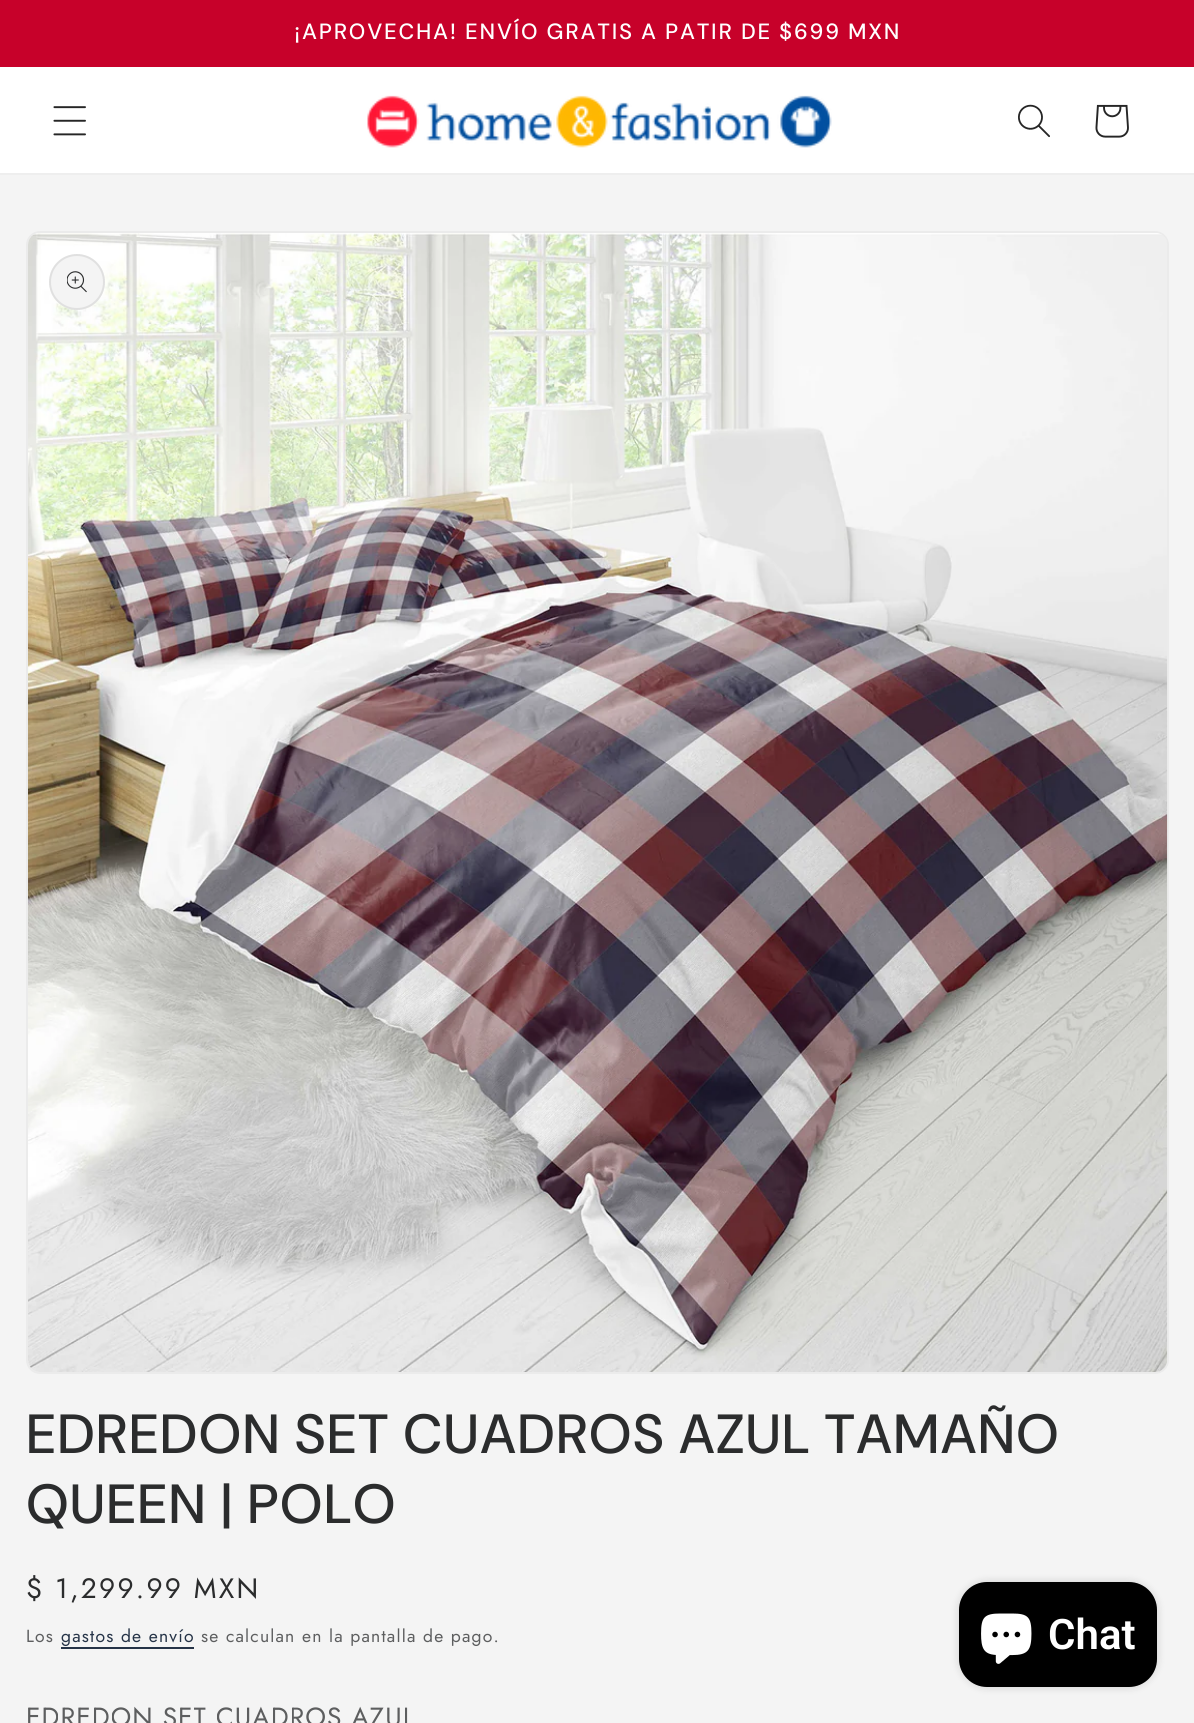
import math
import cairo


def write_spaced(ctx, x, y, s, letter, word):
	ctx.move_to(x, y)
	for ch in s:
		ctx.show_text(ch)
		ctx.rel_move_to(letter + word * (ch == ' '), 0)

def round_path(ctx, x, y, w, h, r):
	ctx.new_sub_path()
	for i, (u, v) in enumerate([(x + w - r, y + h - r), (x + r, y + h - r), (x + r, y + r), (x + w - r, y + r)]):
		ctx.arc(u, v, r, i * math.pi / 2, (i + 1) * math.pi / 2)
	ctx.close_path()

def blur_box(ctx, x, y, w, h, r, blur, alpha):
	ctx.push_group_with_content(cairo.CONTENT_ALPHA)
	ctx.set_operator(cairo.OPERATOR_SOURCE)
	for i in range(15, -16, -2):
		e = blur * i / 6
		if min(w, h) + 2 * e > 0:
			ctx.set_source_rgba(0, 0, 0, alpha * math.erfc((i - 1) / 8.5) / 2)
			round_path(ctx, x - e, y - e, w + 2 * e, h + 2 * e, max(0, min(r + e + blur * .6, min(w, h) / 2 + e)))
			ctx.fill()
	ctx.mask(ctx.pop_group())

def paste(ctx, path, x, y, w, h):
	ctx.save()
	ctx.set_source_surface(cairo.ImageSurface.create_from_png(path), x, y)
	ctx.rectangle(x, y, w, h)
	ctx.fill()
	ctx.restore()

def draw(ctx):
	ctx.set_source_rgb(0.957, 0.957, 0.957)
	ctx.paint()
	ctx.set_source_rgb(0.78, 0.004, 0.165)
	ctx.rectangle(0, 0, 1194, 67)
	ctx.fill()
	ctx.select_font_face('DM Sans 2 Medium')
	ctx.set_font_size(22.05)
	ctx.set_source_rgb(1, 1, 1)
	write_spaced(ctx, 294, 39, '¡APROVECHA! ENVÍO GRATIS A PATIR DE $699 MXN', 1.75, -0.25)
	ctx.rectangle(0, 67, 1194, 106)
	ctx.fill()
	ctx.set_source_rgb(0.933, 0.933, 0.933)
	ctx.rectangle(0, 173, 1194, 2)
	ctx.fill()
	paste(ctx, 'media/1.png', 53, 106, 33, 30)
	paste(ctx, 'media/2.png', 367, 95, 465, 53)
	paste(ctx, 'media/3.png', 1018, 104, 32, 34)
	paste(ctx, 'media/4.png', 1095, 104, 34, 34)
	round_path(ctx, 27, 232, 1141, 1141, 13)
	ctx.set_source_rgb(0.918, 0.918, 0.918)
	ctx.stroke()
	paste(ctx, 'media/5.png', 28, 233, 1140, 1139)
	ctx.set_source_rgb(0.957, 0.957, 0.957)
	ctx.arc(77, 282, 28, 0, 2 * math.pi)
	ctx.fill()
	ctx.arc(77, 282, 27, 0, 2 * math.pi)
	ctx.set_source_rgba(0.169, 0.173, 0.176, 0.1)
	ctx.stroke()
	paste(ctx, 'media/6.png', 67, 271, 20, 22)
	ctx.select_font_face('DM Sans Medium')
	ctx.set_font_size(55.1)
	ctx.set_source_rgb(0.169, 0.173, 0.176)
	write_spaced(ctx, 26, 1453, 'EDREDON SET CUADROS AZUL TAMAÑO', 1.1, 0)
	write_spaced(ctx, 26, 1523, 'QUEEN | POLO', 1.1, 0)
	ctx.select_font_face('Jost')
	ctx.set_font_size(28)
	write_spaced(ctx, 26, 1598, '$ 1,299.99 MXN', 2.25, 0)
	ctx.set_font_size(17.5)
	ctx.set_source_rgb(0.365, 0.369, 0.373)
	write_spaced(ctx, 26, 1642, 'Los', 1.2, 0)
	ctx.set_source_rgb(0.145, 0.2, 0.278)
	write_spaced(ctx, 61, 1642, 'gastos de envío', 1.2, 0)
	ctx.rectangle(61, 1647, 133, 2)
	ctx.fill()
	ctx.set_source_rgb(0.365, 0.369, 0.373)
	write_spaced(ctx, 201, 1642, 'se calculan en la pantalla de pago.', 1.2, 0)
	ctx.set_font_size(26.25)
	write_spaced(ctx, 26, 1726, 'EDREDON SET CUADROS AZUL', 1.05, 0)
	ctx.set_source_rgb(0, 0, 0)
	blur_box(ctx, 959, 1582, 198, 105, 28, 4.5, 0.15)
	ctx.set_source_rgb(0, 0, 0)
	round_path(ctx, 959, 1582, 198, 105, 28)
	ctx.fill()
	paste(ctx, 'media/7.png', 981, 1613, 51, 51)
	ctx.select_font_face('Roboto SemiBold')
	ctx.set_font_size(42)
	ctx.set_source_rgb(1, 1, 1)
	ctx.move_to(1048, 1649)
	ctx.show_text('Chat')


surface = cairo.ImageSurface(cairo.FORMAT_RGB24, 1194, 1723)
ctx = cairo.Context(surface)
options = cairo.FontOptions()
options.set_hint_metrics(cairo.HINT_METRICS_OFF)
options.set_hint_style(cairo.HINT_STYLE_NONE)
ctx.set_font_options(options)
ctx.set_miter_limit(4)
draw(ctx)
surface.write_to_png('image.png')
